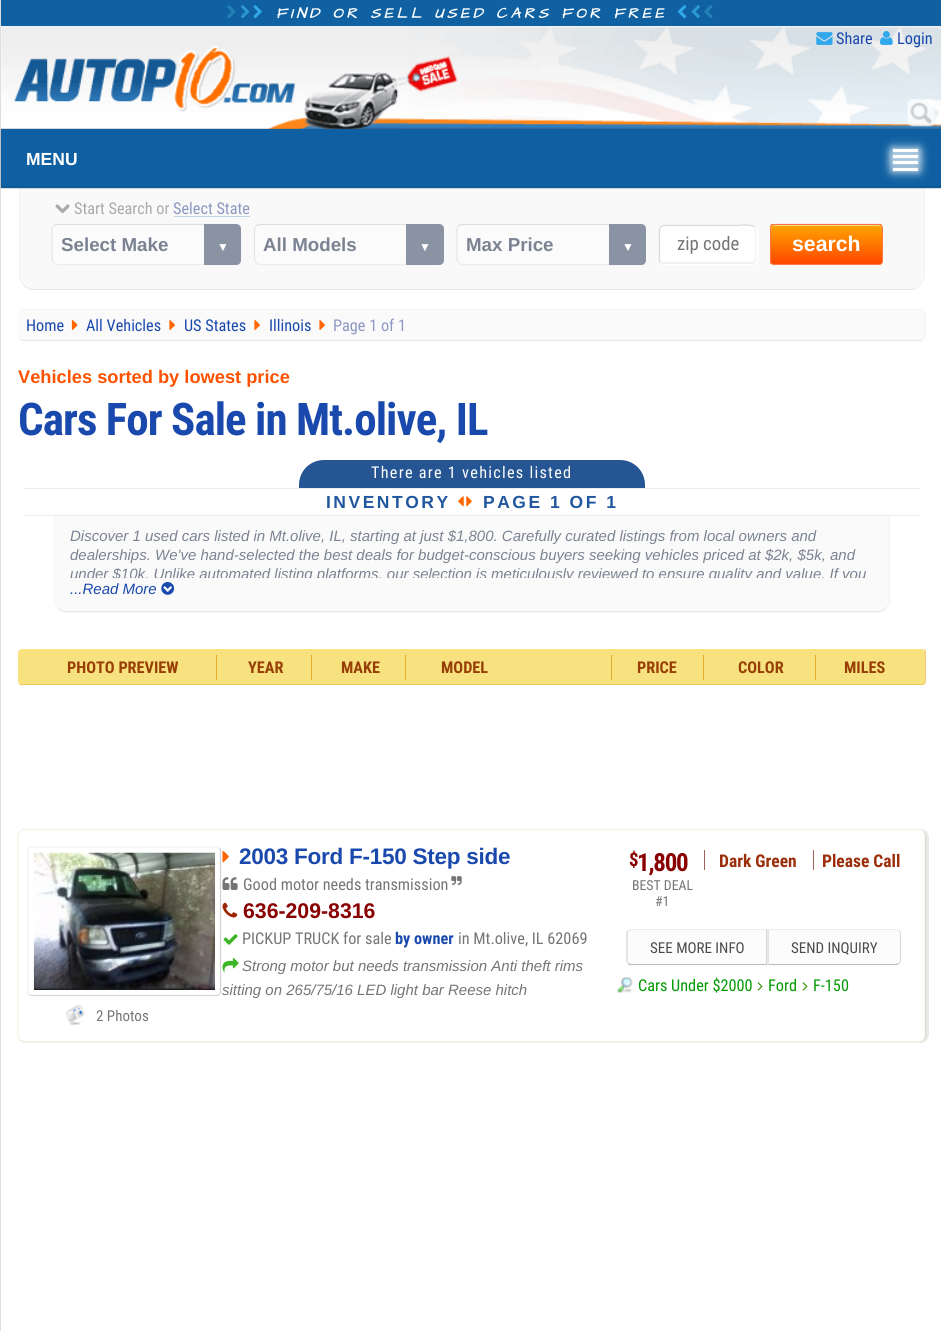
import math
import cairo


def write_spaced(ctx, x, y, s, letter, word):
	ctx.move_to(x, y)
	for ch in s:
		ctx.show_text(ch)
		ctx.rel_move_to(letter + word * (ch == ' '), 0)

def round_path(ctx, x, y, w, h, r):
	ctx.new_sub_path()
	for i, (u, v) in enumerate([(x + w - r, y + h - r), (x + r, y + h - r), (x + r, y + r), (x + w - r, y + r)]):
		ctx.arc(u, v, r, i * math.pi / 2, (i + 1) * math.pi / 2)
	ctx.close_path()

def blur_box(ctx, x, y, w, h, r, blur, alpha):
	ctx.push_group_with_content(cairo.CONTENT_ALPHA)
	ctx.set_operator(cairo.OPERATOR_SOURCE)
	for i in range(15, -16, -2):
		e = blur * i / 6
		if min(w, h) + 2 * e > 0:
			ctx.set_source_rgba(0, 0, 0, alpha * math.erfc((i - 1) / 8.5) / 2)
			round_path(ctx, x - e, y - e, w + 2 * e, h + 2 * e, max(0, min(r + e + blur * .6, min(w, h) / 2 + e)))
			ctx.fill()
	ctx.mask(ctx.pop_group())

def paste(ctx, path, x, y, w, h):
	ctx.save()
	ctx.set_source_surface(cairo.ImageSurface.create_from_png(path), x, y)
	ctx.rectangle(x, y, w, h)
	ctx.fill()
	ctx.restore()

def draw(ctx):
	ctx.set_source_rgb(1, 1, 1)
	ctx.paint()
	ctx.set_source_rgb(0.875, 0.875, 0.875)
	ctx.set_fill_rule(cairo.FILL_RULE_EVEN_ODD)
	ctx.new_path()
	ctx.move_to(0, 0)
	ctx.line_to(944, 0)
	ctx.line_to(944, 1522)
	ctx.curve_to(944, 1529, 938, 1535, 931, 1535)
	ctx.line_to(12, 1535)
	ctx.curve_to(6, 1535, 0, 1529, 0, 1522)
	ctx.close_path()
	ctx.move_to(1, 0)
	ctx.line_to(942, 0)
	ctx.line_to(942, 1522)
	ctx.curve_to(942, 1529, 937, 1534, 931, 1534)
	ctx.line_to(12, 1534)
	ctx.curve_to(6, 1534, 1, 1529, 1, 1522)
	ctx.close_path()
	ctx.fill()
	ctx.set_source_rgb(0.059, 0.38, 0.635)
	ctx.rectangle(1, 0, 940, 26)
	ctx.fill()
	paste(ctx, 'media/1.png', 227, 5, 9, 13)
	paste(ctx, 'media/2.png', 241, 5, 9, 13)
	paste(ctx, 'media/3.png', 253, 5, 9, 14)
	ctx.select_font_face('Architects Daughter', cairo.FONT_SLANT_ITALIC, cairo.FONT_WEIGHT_BOLD)
	ctx.set_font_size(15)
	ctx.set_source_rgb(1, 1, 1)
	write_spaced(ctx, 276, 18, 'FIND OR SELL USED CARS FOR FREE', 3.75, 0)
	paste(ctx, 'media/4.png', 678, 5, 9, 14)
	paste(ctx, 'media/5.png', 691, 5, 9, 13)
	paste(ctx, 'media/6.png', 704, 5, 9, 13)
	paste(ctx, 'media/7.png', 1, 26, 940, 103)
	paste(ctx, 'media/8.png', 816, 32, 17, 13)
	ctx.select_font_face('Roboto Condensed')
	ctx.set_font_size(16.25)
	ctx.set_source_rgb(0.102, 0.286, 0.678)
	ctx.move_to(836, 44)
	ctx.show_text('Share')
	paste(ctx, 'media/9.png', 880, 31, 13, 14)
	ctx.move_to(897, 44)
	ctx.show_text('Login')
	ctx.set_source_rgb(0.973, 0.973, 0.973)
	ctx.new_path()
	ctx.move_to(19, 188)
	ctx.line_to(925, 188)
	ctx.line_to(925, 275)
	ctx.curve_to(925, 283.5, 918.5, 290, 910, 290)
	ctx.line_to(34, 290)
	ctx.curve_to(25.5, 290, 19, 283.5, 19, 275)
	ctx.close_path()
	ctx.fill()
	ctx.set_source_rgb(0.957, 0.957, 0.957)
	ctx.set_fill_rule(cairo.FILL_RULE_WINDING)
	ctx.new_path()
	ctx.move_to(920, 286)
	ctx.line_to(920, 285)
	ctx.curve_to(922, 282, 924, 279, 924, 275)
	ctx.line_to(924, 188)
	ctx.line_to(925, 188)
	ctx.line_to(925, 275)
	ctx.curve_to(925, 279, 923, 283, 920, 286)
	ctx.close_path()
	ctx.fill()
	ctx.set_source_rgb(0.894, 0.894, 0.894)
	ctx.new_path()
	ctx.move_to(34, 290)
	ctx.line_to(910, 290)
	ctx.curve_to(914, 290, 918, 288, 920, 286)
	ctx.line_to(920, 285)
	ctx.curve_to(918, 288, 914, 289, 910, 289)
	ctx.line_to(34, 289)
	ctx.curve_to(30, 289, 26, 287, 24, 285)
	ctx.line_to(23, 286)
	ctx.curve_to(26, 288, 30, 290, 34, 290)
	ctx.close_path()
	ctx.fill()
	ctx.set_source_rgb(0.945, 0.945, 0.945)
	ctx.new_path()
	ctx.move_to(19, 188)
	ctx.line_to(20, 188)
	ctx.line_to(20, 275)
	ctx.curve_to(20, 279, 21, 282, 24, 285)
	ctx.line_to(23, 286)
	ctx.curve_to(21, 283, 19, 279, 19, 275)
	ctx.close_path()
	ctx.fill()
	ctx.set_source_rgb(0.388, 0.388, 0.388)
	blur_box(ctx, 1, 129, 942, 59, 0, 0.5, 1)
	paste(ctx, 'media/10.png', 907, 99, 28, 28)
	ctx.set_source_rgb(0.059, 0.376, 0.635)
	ctx.rectangle(1, 129, 940, 59)
	ctx.fill()
	ctx.set_source_rgb(0.055, 0.337, 0.573)
	ctx.rectangle(1, 186, 940, 1)
	ctx.fill()
	ctx.select_font_face('Liberation Sans', cairo.FONT_SLANT_NORMAL, cairo.FONT_WEIGHT_BOLD)
	ctx.set_font_size(17.5)
	ctx.set_source_rgb(1, 1, 1)
	ctx.move_to(26, 165)
	ctx.show_text('MENU')
	ctx.set_source_rgb(1, 1, 1)
	blur_box(ctx, 893, 149, 25, 3, 0, 5, 1)
	ctx.set_source_rgb(1, 1, 1)
	ctx.rectangle(893, 149, 25, 3)
	ctx.fill()
	ctx.set_source_rgb(1, 1, 1)
	blur_box(ctx, 893, 155, 25, 3, 0, 5, 1)
	ctx.set_source_rgb(1, 1, 1)
	ctx.rectangle(893, 155, 25, 3)
	ctx.fill()
	ctx.set_source_rgb(1, 1, 1)
	blur_box(ctx, 893, 161, 25, 3, 0, 5, 1)
	ctx.set_source_rgb(1, 1, 1)
	ctx.rectangle(893, 161, 25, 3)
	ctx.fill()
	ctx.set_source_rgb(1, 1, 1)
	blur_box(ctx, 893, 168, 25, 3, 0, 5, 1)
	ctx.set_source_rgb(1, 1, 1)
	ctx.rectangle(893, 168, 25, 3)
	ctx.fill()
	paste(ctx, 'media/11.png', 55, 204, 15, 10)
	ctx.select_font_face('Roboto Condensed')
	ctx.set_font_size(16.25)
	ctx.set_source_rgb(0.667, 0.667, 0.667)
	ctx.move_to(74, 214)
	ctx.show_text('Start Search or')
	ctx.set_source_rgb(0.553, 0.596, 0.761)
	ctx.move_to(173, 214)
	ctx.show_text('Select State')
	ctx.set_source_rgb(0.769, 0.82, 0.902)
	ctx.rectangle(174, 216, 76, 1)
	ctx.fill()
	ctx.set_source_rgb(0.984, 0.984, 0.984)
	round_path(ctx, 51, 224, 190, 41, 6)
	ctx.fill()
	ctx.new_path()
	ctx.move_to(53.5, 226)
	ctx.curve_to(54.5, 225, 56, 224.5, 57.5, 224.5)
	ctx.line_to(235, 224.5)
	ctx.curve_to(236.5, 224.5, 238, 225, 239, 226)
	ctx.set_source_rgb(0.871, 0.871, 0.871)
	ctx.set_line_width(1.2)
	ctx.stroke()
	ctx.new_path()
	ctx.move_to(239, 226)
	ctx.curve_to(240, 227, 240.5, 228.5, 240.5, 230)
	ctx.line_to(240.5, 259)
	ctx.curve_to(240.5, 260, 240, 261.5, 239, 262.5)
	ctx.curve_to(238, 264, 236.5, 264.5, 235, 264.5)
	ctx.line_to(57.5, 264.5)
	ctx.curve_to(56, 264.5, 54.5, 264, 53.5, 262.5)
	ctx.set_source_rgb(0.922, 0.922, 0.922)
	ctx.stroke()
	ctx.new_path()
	ctx.move_to(53.5, 262.5)
	ctx.curve_to(52.5, 261.5, 52, 260, 52, 259)
	ctx.line_to(52, 230)
	ctx.curve_to(52, 228.5, 52.5, 227, 53.5, 226)
	ctx.set_source_rgb(0.902, 0.902, 0.902)
	ctx.stroke()
	ctx.select_font_face('Liberation Sans', cairo.FONT_SLANT_NORMAL, cairo.FONT_WEIGHT_BOLD)
	ctx.set_font_size(18.75)
	ctx.set_source_rgb(0.482, 0.514, 0.573)
	ctx.move_to(61, 251)
	ctx.show_text('Select Make')
	ctx.set_source_rgb(0.541, 0.576, 0.639)
	ctx.new_path()
	ctx.move_to(204, 224)
	ctx.line_to(236, 224)
	ctx.curve_to(239, 224, 241, 226, 241, 229)
	ctx.line_to(241, 260)
	ctx.curve_to(241, 263, 239, 265, 236, 265)
	ctx.line_to(204, 265)
	ctx.close_path()
	ctx.fill()
	ctx.select_font_face('Liberation Sans')
	ctx.set_font_size(12)
	ctx.set_source_rgb(1, 1, 1)
	ctx.move_to(217, 251)
	ctx.show_text('▼')
	ctx.set_source_rgb(0.984, 0.984, 0.984)
	round_path(ctx, 254, 224, 190, 41, 6)
	ctx.fill()
	ctx.new_path()
	ctx.move_to(256, 226)
	ctx.curve_to(257, 225, 258.5, 224.5, 260, 224.5)
	ctx.line_to(437.5, 224.5)
	ctx.curve_to(439, 224.5, 440.5, 225, 441.5, 226)
	ctx.set_source_rgb(0.871, 0.871, 0.871)
	ctx.stroke()
	ctx.new_path()
	ctx.move_to(441.5, 226)
	ctx.curve_to(442.5, 227, 443, 228.5, 443, 230)
	ctx.line_to(443, 259)
	ctx.curve_to(443, 260, 442.5, 261.5, 441.5, 262.5)
	ctx.curve_to(440.5, 264, 439, 264.5, 437.5, 264.5)
	ctx.line_to(260, 264.5)
	ctx.curve_to(258.5, 264.5, 257, 264, 256, 262.5)
	ctx.set_source_rgb(0.922, 0.922, 0.922)
	ctx.stroke()
	ctx.new_path()
	ctx.move_to(256, 262.5)
	ctx.curve_to(255, 261.5, 254.5, 260, 254.5, 259)
	ctx.line_to(254.5, 230)
	ctx.curve_to(254.5, 228.5, 255, 227, 256, 226)
	ctx.set_source_rgb(0.902, 0.902, 0.902)
	ctx.stroke()
	ctx.select_font_face('Liberation Sans', cairo.FONT_SLANT_NORMAL, cairo.FONT_WEIGHT_BOLD)
	ctx.set_font_size(18.75)
	ctx.set_source_rgb(0.482, 0.514, 0.573)
	ctx.move_to(263, 251)
	ctx.show_text('All Models')
	ctx.set_source_rgb(0.541, 0.576, 0.639)
	ctx.new_path()
	ctx.move_to(406, 224)
	ctx.line_to(439, 224)
	ctx.curve_to(442, 224, 444, 226, 444, 229)
	ctx.line_to(444, 260)
	ctx.curve_to(444, 263, 442, 265, 439, 265)
	ctx.line_to(406, 265)
	ctx.close_path()
	ctx.fill()
	ctx.select_font_face('Liberation Sans')
	ctx.set_font_size(12)
	ctx.set_source_rgb(1, 1, 1)
	ctx.move_to(419, 251)
	ctx.show_text('▼')
	ctx.set_source_rgb(0.984, 0.984, 0.984)
	round_path(ctx, 456, 224, 190, 41, 6)
	ctx.fill()
	ctx.new_path()
	ctx.move_to(458.5, 226)
	ctx.curve_to(459.5, 225, 461, 224.5, 462.5, 224.5)
	ctx.line_to(640, 224.5)
	ctx.curve_to(641.5, 224.5, 643, 225, 644, 226)
	ctx.set_source_rgb(0.871, 0.871, 0.871)
	ctx.stroke()
	ctx.new_path()
	ctx.move_to(644, 226)
	ctx.curve_to(645, 227, 645.5, 228.5, 645.5, 230)
	ctx.line_to(645.5, 259)
	ctx.curve_to(645.5, 260, 645, 261.5, 644, 262.5)
	ctx.curve_to(643, 264, 641.5, 264.5, 640, 264.5)
	ctx.line_to(462.5, 264.5)
	ctx.curve_to(461, 264.5, 459.5, 264, 458.5, 262.5)
	ctx.set_source_rgb(0.922, 0.922, 0.922)
	ctx.stroke()
	ctx.new_path()
	ctx.move_to(458.5, 262.5)
	ctx.curve_to(457.5, 261.5, 457, 260, 457, 259)
	ctx.line_to(457, 230)
	ctx.curve_to(457, 228.5, 457.5, 227, 458.5, 226)
	ctx.set_source_rgb(0.902, 0.902, 0.902)
	ctx.stroke()
	ctx.select_font_face('Liberation Sans', cairo.FONT_SLANT_NORMAL, cairo.FONT_WEIGHT_BOLD)
	ctx.set_font_size(18.75)
	ctx.set_source_rgb(0.482, 0.514, 0.573)
	ctx.move_to(466, 251)
	ctx.show_text('Max Price')
	ctx.set_source_rgb(0.541, 0.576, 0.639)
	ctx.new_path()
	ctx.move_to(609, 224)
	ctx.line_to(641, 224)
	ctx.curve_to(644, 224, 646, 226, 646, 229)
	ctx.line_to(646, 260)
	ctx.curve_to(646, 263, 644, 265, 641, 265)
	ctx.line_to(609, 265)
	ctx.close_path()
	ctx.fill()
	ctx.select_font_face('Liberation Sans')
	ctx.set_font_size(12)
	ctx.set_source_rgb(1, 1, 1)
	ctx.move_to(622, 251)
	ctx.show_text('▼')
	ctx.new_path()
	ctx.move_to(661, 263)
	ctx.curve_to(662, 264, 663, 265, 665, 265)
	ctx.line_to(753, 265)
	ctx.curve_to(756, 265, 758, 263, 758, 260)
	ctx.line_to(758, 231)
	ctx.curve_to(758, 229, 757, 227, 755, 226)
	ctx.curve_to(756, 227, 756, 229, 756, 230)
	ctx.line_to(756, 259)
	ctx.curve_to(756, 262, 754, 264, 751, 264)
	ctx.line_to(664, 264)
	ctx.close_path()
	ctx.fill()
	round_path(ctx, 659, 225, 97, 39, 5)
	ctx.fill()
	ctx.new_path()
	ctx.move_to(754.5, 227)
	ctx.curve_to(755, 227.5, 755.5, 229, 755.5, 230)
	ctx.line_to(755.5, 259)
	ctx.curve_to(755.5, 260, 755, 261, 754.5, 262)
	ctx.set_source_rgb(0.953, 0.953, 0.953)
	ctx.stroke()
	ctx.new_path()
	ctx.move_to(754.5, 262)
	ctx.curve_to(753.5, 262.5, 752.5, 263, 751, 263)
	ctx.line_to(664, 263)
	ctx.curve_to(662.5, 263, 661.5, 262.5, 660.5, 262)
	ctx.set_source_rgb(0.906, 0.906, 0.906)
	ctx.stroke()
	ctx.new_path()
	ctx.move_to(660.5, 262)
	ctx.curve_to(658.5, 260, 659.5, 256.5, 659.5, 254)
	ctx.line_to(659.5, 244.5)
	ctx.curve_to(659.5, 223, 656, 225.5, 678.5, 225.5)
	ctx.line_to(736.5, 225.5)
	ctx.curve_to(737, 225.5, 751, 223.5, 754.5, 227)
	ctx.set_source_rgb(0.847, 0.847, 0.847)
	ctx.stroke()
	ctx.select_font_face('Roboto Condensed')
	ctx.set_font_size(18.75)
	ctx.set_source_rgb(0.459, 0.459, 0.459)
	ctx.move_to(677, 250)
	ctx.show_text('zip code')
	paste(ctx, 'media/12.png', 770, 223, 113, 42)
	ctx.set_source_rgba(1, 1, 1, 0.5)
	ctx.new_path()
	ctx.move_to(774, 226)
	ctx.line_to(879, 226)
	ctx.curve_to(880, 226, 881, 227, 881, 229)
	ctx.line_to(881, 228)
	ctx.curve_to(881, 226, 880, 225, 878, 225)
	ctx.line_to(774, 225)
	ctx.curve_to(772, 225, 771, 226, 771, 228)
	ctx.line_to(771, 229)
	ctx.curve_to(771, 227, 772, 226, 774, 226)
	ctx.close_path()
	ctx.fill()
	round_path(ctx, 770.5, 224.5, 112, 40, 3.5)
	ctx.set_source_rgb(1, 0.471, 0.271)
	ctx.set_line_width(1)
	ctx.stroke()
	ctx.select_font_face('Liberation Sans', cairo.FONT_SLANT_NORMAL, cairo.FONT_WEIGHT_BOLD)
	ctx.set_font_size(21.25)
	ctx.set_source_rgb(1, 1, 1)
	ctx.move_to(792, 251)
	ctx.show_text('search')
	ctx.set_source_rgb(0.98, 0.98, 0.98)
	round_path(ctx, 18, 309, 908, 32, 6)
	ctx.fill()
	ctx.set_source_rgb(0.961, 0.961, 0.961)
	ctx.new_path()
	ctx.move_to(24, 309)
	ctx.line_to(920, 309)
	ctx.curve_to(922, 309, 923, 310, 924, 311)
	ctx.curve_to(923, 310, 922, 310, 920, 310)
	ctx.line_to(24, 310)
	ctx.curve_to(20, 310, 18, 312, 18, 315)
	ctx.curve_to(18, 312, 20, 309, 24, 309)
	ctx.close_path()
	ctx.fill()
	ctx.set_source_rgb(0.953, 0.953, 0.953)
	ctx.new_path()
	ctx.move_to(924, 311)
	ctx.curve_to(925, 312, 926, 313.5, 926, 315)
	ctx.line_to(926, 335)
	ctx.curve_to(926, 336.5, 925, 338, 924, 339)
	ctx.line_to(923.5, 338.5)
	ctx.curve_to(924.5, 338, 925, 336.5, 925, 335)
	ctx.line_to(925, 315)
	ctx.curve_to(925, 313.5, 924.5, 312, 923.5, 311.5)
	ctx.close_path()
	ctx.fill()
	ctx.set_source_rgb(0.906, 0.906, 0.906)
	ctx.new_path()
	ctx.move_to(924, 339)
	ctx.curve_to(923, 340, 922, 340, 920, 340)
	ctx.line_to(24, 340)
	ctx.curve_to(20, 340, 18, 338, 18, 335)
	ctx.curve_to(18, 338, 20, 341, 24, 341)
	ctx.line_to(920, 341)
	ctx.curve_to(922, 341, 923, 340, 924, 339)
	ctx.close_path()
	ctx.fill()
	ctx.select_font_face('Roboto Condensed')
	ctx.set_font_size(16.25)
	ctx.set_source_rgb(0.102, 0.286, 0.678)
	ctx.move_to(26, 331)
	ctx.show_text('Home')
	paste(ctx, 'media/13.png', 71, 320, 7, 10)
	ctx.move_to(86, 331)
	ctx.show_text('All Vehicles')
	paste(ctx, 'media/14.png', 169, 320, 6, 10)
	ctx.move_to(184, 331)
	ctx.show_text('US States')
	paste(ctx, 'media/14.png', 254, 320, 6, 10)
	ctx.move_to(269, 331)
	ctx.show_text('Illinois')
	paste(ctx, 'media/14.png', 319, 320, 6, 10)
	ctx.set_source_rgb(0.553, 0.596, 0.761)
	ctx.move_to(333, 331)
	ctx.show_text('Page 1 of 1')
	ctx.select_font_face('Liberation Sans', cairo.FONT_SLANT_NORMAL, cairo.FONT_WEIGHT_BOLD)
	ctx.set_font_size(18.25)
	ctx.set_source_rgb(1, 0.322, 0)
	ctx.move_to(18, 383)
	ctx.show_text('Vehicles sorted by lowest price')
	ctx.select_font_face('Roboto Condensed', cairo.FONT_SLANT_NORMAL, cairo.FONT_WEIGHT_BOLD)
	ctx.set_font_size(45)
	ctx.set_source_rgb(0.102, 0.286, 0.678)
	write_spaced(ctx, 18, 435, 'Cars For Sale in Mt.olive, IL', -0.95, 0)
	ctx.set_source_rgb(0.145, 0.333, 0.573)
	ctx.new_path()
	ctx.move_to(324, 460)
	ctx.line_to(620, 460)
	ctx.curve_to(634, 460, 645, 471, 645, 485)
	ctx.line_to(645, 488)
	ctx.line_to(299, 488)
	ctx.line_to(299, 485)
	ctx.curve_to(299, 471, 310, 460, 324, 460)
	ctx.close_path()
	ctx.fill()
	ctx.select_font_face('Roboto Condensed')
	ctx.set_font_size(16.25)
	ctx.set_source_rgb(1, 1, 1)
	write_spaced(ctx, 371, 478, 'There are 1 vehicles listed', 1.25, 0)
	ctx.set_source_rgb(0.922, 0.922, 0.922)
	ctx.rectangle(24, 488, 896, 1)
	ctx.fill()
	ctx.rectangle(24, 515, 896, 1)
	ctx.fill()
	ctx.select_font_face('Liberation Sans', cairo.FONT_SLANT_NORMAL, cairo.FONT_WEIGHT_BOLD)
	ctx.set_font_size(17.5)
	ctx.set_source_rgb(0.125, 0.341, 0.62)
	write_spaced(ctx, 326, 508, 'INVENTORY', 2.5, 0)
	paste(ctx, 'media/15.png', 458, 496, 6, 11)
	paste(ctx, 'media/16.png', 466, 496, 6, 11)
	write_spaced(ctx, 483, 508, 'PAGE 1 OF 1', 2.5, 0)
	ctx.set_source_rgb(0.98, 0.98, 0.98)
	ctx.new_path()
	ctx.move_to(54, 516)
	ctx.line_to(890, 516)
	ctx.line_to(890, 600)
	ctx.curve_to(890, 607, 884, 613, 877, 613)
	ctx.line_to(67, 613)
	ctx.curve_to(60, 613, 54, 607, 54, 600)
	ctx.close_path()
	ctx.fill()
	ctx.set_source_rgb(0.945, 0.945, 0.945)
	ctx.new_path()
	ctx.move_to(890, 516)
	ctx.line_to(889, 516)
	ctx.line_to(889, 600)
	ctx.curve_to(889, 603, 888, 606, 885, 608)
	ctx.line_to(886, 609)
	ctx.curve_to(888, 607, 890, 604, 890, 600)
	ctx.close_path()
	ctx.fill()
	ctx.set_source_rgb(0.906, 0.906, 0.906)
	ctx.new_path()
	ctx.move_to(886, 609)
	ctx.curve_to(884, 611, 881, 612, 878, 612)
	ctx.line_to(66, 612)
	ctx.curve_to(63, 612, 60, 611, 58, 609)
	ctx.line_to(58, 608)
	ctx.curve_to(60, 610, 63, 611, 66, 611)
	ctx.line_to(878, 611)
	ctx.curve_to(881, 611, 884, 610, 885, 608)
	ctx.close_path()
	ctx.fill()
	ctx.set_source_rgb(0.961, 0.961, 0.961)
	ctx.new_path()
	ctx.move_to(58, 609)
	ctx.curve_to(55, 607, 54, 604, 54, 600)
	ctx.line_to(54, 516)
	ctx.line_to(55, 516)
	ctx.line_to(55, 600)
	ctx.curve_to(55, 603, 56, 606, 58, 608)
	ctx.close_path()
	ctx.fill()
	ctx.select_font_face('Liberation Sans', cairo.FONT_SLANT_ITALIC)
	ctx.set_font_size(15)
	ctx.set_source_rgb(0.482, 0.514, 0.573)
	ctx.move_to(70, 541)
	ctx.show_text('Discover 1 used cars listed in Mt.olive, IL, starting at just $1,800. Carefully curated listings from local owners and')
	ctx.move_to(70, 560)
	ctx.show_text('dealerships. We\'ve hand-selected the best deals for budget-conscious buyers seeking vehicles priced at $2k, $5k, and')
	ctx.save()
	ctx.rectangle(70, 528, 804, 50)
	ctx.clip()
	ctx.move_to(70, 579)
	ctx.show_text('under $10k. Unlike automated listing platforms, our selection is meticulously reviewed to ensure quality and value. If you')
	ctx.restore()
	ctx.set_source_rgb(0.102, 0.286, 0.678)
	ctx.move_to(70, 594)
	ctx.show_text('...Read More')
	paste(ctx, 'media/17.png', 161, 582, 14, 13)
	ctx.set_source_rgb(0.969, 0.886, 0.502)
	round_path(ctx, 18, 649, 908, 36, 4)
	ctx.fill()
	ctx.set_source_rgb(0.973, 0.784, 0.506)
	ctx.new_path()
	ctx.move_to(925, 684)
	ctx.line_to(924.5, 683)
	ctx.curve_to(925, 682.5, 925, 682, 925, 681)
	ctx.line_to(925, 652)
	ctx.curve_to(925, 650, 924, 649, 922, 649)
	ctx.curve_to(925, 649, 926, 650, 926, 652)
	ctx.line_to(926, 681)
	ctx.curve_to(926, 682, 925.5, 683, 925, 684)
	ctx.close_path()
	ctx.fill()
	ctx.set_source_rgb(0.929, 0.78, 0.341)
	ctx.new_path()
	ctx.move_to(21, 685)
	ctx.line_to(922, 685)
	ctx.curve_to(923, 685, 924, 685, 925, 684)
	ctx.line_to(924, 683)
	ctx.curve_to(924, 684, 923, 684, 922, 684)
	ctx.line_to(21, 684)
	ctx.curve_to(19, 684, 18, 683, 18, 681)
	ctx.curve_to(18, 683, 19, 685, 21, 685)
	ctx.close_path()
	ctx.fill()
	ctx.set_source_rgb(0.902, 0.667, 0.165)
	ctx.rectangle(216, 655, 1, 25)
	ctx.fill()
	ctx.select_font_face('Roboto Condensed', cairo.FONT_SLANT_NORMAL, cairo.FONT_WEIGHT_BOLD)
	ctx.set_font_size(16.25)
	ctx.set_source_rgb(0.592, 0.247, 0.02)
	ctx.move_to(67, 673)
	ctx.show_text('PHOTO PREVIEW')
	ctx.set_source_rgb(0.902, 0.667, 0.165)
	ctx.rectangle(311, 655, 1, 25)
	ctx.fill()
	ctx.set_source_rgb(0.592, 0.247, 0.02)
	ctx.move_to(248, 673)
	ctx.show_text('YEAR')
	ctx.set_source_rgb(0.902, 0.667, 0.165)
	ctx.rectangle(405, 655, 1, 25)
	ctx.fill()
	ctx.set_source_rgb(0.592, 0.247, 0.02)
	ctx.move_to(341, 673)
	ctx.show_text('MAKE')
	ctx.move_to(441, 673)
	ctx.show_text('MODEL')
	ctx.set_source_rgb(0.902, 0.667, 0.165)
	ctx.rectangle(703, 655, 1, 25)
	ctx.fill()
	ctx.rectangle(611, 655, 1, 25)
	ctx.fill()
	ctx.set_source_rgb(0.592, 0.247, 0.02)
	ctx.move_to(637, 673)
	ctx.show_text('PRICE')
	ctx.set_source_rgb(0.902, 0.667, 0.165)
	ctx.rectangle(815, 655, 1, 25)
	ctx.fill()
	ctx.set_source_rgb(0.592, 0.247, 0.02)
	ctx.move_to(738, 673)
	ctx.show_text('COLOR')
	ctx.move_to(844, 673)
	ctx.show_text('MILES')
	ctx.set_source_rgb(0.914, 0.914, 0.914)
	ctx.new_path()
	ctx.move_to(25, 1042)
	ctx.line_to(28, 1043)
	ctx.line_to(921, 1043)
	ctx.curve_to(925, 1043, 929, 1039, 929, 1035)
	ctx.line_to(929, 837)
	ctx.curve_to(929, 833, 925, 829, 921, 829)
	ctx.curve_to(924, 830, 926, 833, 926, 836)
	ctx.line_to(926, 1035)
	ctx.curve_to(926, 1039, 923, 1042, 919, 1042)
	ctx.close_path()
	ctx.fill()
	ctx.set_source_rgb(1, 1, 1)
	round_path(ctx, 18, 829, 908, 214, 8)
	ctx.fill()
	ctx.new_path()
	ctx.move_to(923.5, 831.5)
	ctx.curve_to(925, 832.5, 925.5, 834.5, 925.5, 836)
	ctx.line_to(925.5, 1035)
	ctx.curve_to(925.5, 1037, 925, 1038.5, 923.5, 1040)
	ctx.set_source_rgb(0.871, 0.859, 0.808)
	ctx.set_line_width(1.2)
	ctx.stroke()
	ctx.new_path()
	ctx.move_to(923.5, 1040)
	ctx.curve_to(922.5, 1041, 920.5, 1042, 919, 1042)
	ctx.line_to(25, 1042)
	ctx.curve_to(23, 1042, 21.5, 1041, 20, 1040)
	ctx.set_source_rgb(0.922, 0.894, 0.82)
	ctx.stroke()
	ctx.new_path()
	ctx.move_to(20, 1040)
	ctx.curve_to(19, 1038.5, 18, 1037, 18, 1035)
	ctx.line_to(18, 836)
	ctx.curve_to(18, 834.5, 19, 832.5, 20, 831.5)
	ctx.curve_to(21.5, 830, 23, 829.5, 25, 829.5)
	ctx.line_to(919, 829.5)
	ctx.curve_to(920.5, 829.5, 922.5, 830, 923.5, 831.5)
	ctx.set_source_rgb(0.953, 0.945, 0.886)
	ctx.stroke()
	paste(ctx, 'media/18.png', 222, 850, 7, 13)
	ctx.select_font_face('Liberation Sans', cairo.FONT_SLANT_NORMAL, cairo.FONT_WEIGHT_BOLD)
	ctx.set_font_size(22.5)
	ctx.set_source_rgb(0.102, 0.286, 0.678)
	write_spaced(ctx, 239, 864, '2003 Ford F-150 Step side', -0.25, 0)
	paste(ctx, 'media/19.png', 222, 877, 16, 13)
	ctx.select_font_face('Roboto Condensed')
	ctx.set_font_size(16.25)
	ctx.set_source_rgb(0.459, 0.459, 0.459)
	ctx.move_to(243, 890)
	ctx.show_text('Good motor needs transmission')
	paste(ctx, 'media/20.png', 451, 876, 11, 9)
	paste(ctx, 'media/21.png', 222, 902, 16, 16)
	ctx.select_font_face('Liberation Sans', cairo.FONT_SLANT_NORMAL, cairo.FONT_WEIGHT_BOLD)
	ctx.set_font_size(21.25)
	ctx.set_source_rgb(0.533, 0, 0)
	ctx.move_to(243, 918)
	ctx.show_text('636-209-8316')
	paste(ctx, 'media/22.png', 223, 934, 15, 11)
	ctx.select_font_face('Roboto Condensed')
	ctx.set_font_size(16.25)
	ctx.set_source_rgb(0.459, 0.459, 0.459)
	ctx.move_to(242, 944)
	ctx.show_text('PICKUP TRUCK for sale')
	ctx.select_font_face('Roboto Condensed', cairo.FONT_SLANT_NORMAL, cairo.FONT_WEIGHT_BOLD)
	ctx.set_source_rgb(0.102, 0.286, 0.678)
	ctx.move_to(395, 944)
	ctx.show_text('by owner')
	ctx.select_font_face('Roboto Condensed')
	ctx.set_source_rgb(0.459, 0.459, 0.459)
	ctx.move_to(458, 944)
	ctx.show_text('in Mt.olive, IL 62069')
	paste(ctx, 'media/23.png', 222, 958, 17, 15)
	ctx.select_font_face('Liberation Sans', cairo.FONT_SLANT_ITALIC)
	ctx.set_font_size(15)
	ctx.move_to(242, 971)
	ctx.show_text('Strong motor but needs transmission Anti theft rims')
	ctx.move_to(222, 995)
	ctx.show_text('sitting on 265/75/16 LED light bar Reese hitch')
	ctx.select_font_face('Roboto Condensed', cairo.FONT_SLANT_NORMAL, cairo.FONT_WEIGHT_BOLD)
	ctx.set_font_size(18.75)
	ctx.set_source_rgb(0.533, 0, 0)
	write_spaced(ctx, 629, 866, '$', -1.25, 0)
	ctx.set_font_size(25)
	write_spaced(ctx, 637, 871, '1,800', -1.25, 0)
	ctx.select_font_face('Roboto Condensed')
	ctx.set_font_size(13.75)
	ctx.set_source_rgb(0.459, 0.459, 0.459)
	ctx.move_to(632, 890)
	ctx.show_text('BEST DEAL')
	ctx.move_to(655, 906)
	ctx.show_text('#1')
	ctx.set_source_rgb(0.6, 0.392, 0.333)
	ctx.rectangle(813, 850, 1, 20)
	ctx.fill()
	ctx.rectangle(704, 850, 1, 20)
	ctx.fill()
	ctx.select_font_face('Roboto Condensed', cairo.FONT_SLANT_NORMAL, cairo.FONT_WEIGHT_BOLD)
	ctx.set_font_size(17.5)
	ctx.set_source_rgb(0.608, 0.176, 0.039)
	ctx.move_to(719, 867)
	ctx.show_text('Dark Green')
	ctx.move_to(822, 867)
	ctx.show_text('Please Call')
	ctx.set_source_rgb(0.988, 0.988, 0.988)
	ctx.new_path()
	ctx.move_to(631, 929)
	ctx.line_to(768, 929)
	ctx.line_to(768, 965)
	ctx.line_to(631, 965)
	ctx.curve_to(628, 965, 626, 963, 626, 960)
	ctx.line_to(626, 934)
	ctx.curve_to(626, 931, 628, 929, 631, 929)
	ctx.close_path()
	ctx.fill()
	ctx.set_source_rgb(0.925, 0.925, 0.925)
	ctx.new_path()
	ctx.move_to(631, 929)
	ctx.line_to(628, 930)
	ctx.line_to(629, 931)
	ctx.line_to(631, 930)
	ctx.line_to(766, 930)
	ctx.line_to(767, 929)
	ctx.close_path()
	ctx.fill()
	ctx.set_source_rgb(0.839, 0.839, 0.839)
	ctx.new_path()
	ctx.move_to(767.5, 929)
	ctx.line_to(767.5, 965)
	ctx.line_to(766, 963.5)
	ctx.line_to(766, 930)
	ctx.close_path()
	ctx.fill()
	ctx.set_source_rgb(0.737, 0.737, 0.737)
	ctx.new_path()
	ctx.move_to(768, 965)
	ctx.line_to(766, 964)
	ctx.line_to(631, 964)
	ctx.curve_to(630, 964, 629, 963, 629, 963)
	ctx.line_to(628, 964)
	ctx.curve_to(628, 965, 630, 965, 631, 965)
	ctx.close_path()
	ctx.fill()
	ctx.set_source_rgb(0.894, 0.894, 0.894)
	ctx.new_path()
	ctx.move_to(626, 932.5)
	ctx.line_to(627.5, 930)
	ctx.line_to(629, 931)
	ctx.curve_to(628, 932, 628, 933, 628, 934)
	ctx.line_to(628, 960)
	ctx.curve_to(628, 961, 628, 962, 628.5, 962.5)
	ctx.line_to(627.5, 963.5)
	ctx.line_to(626, 961.5)
	ctx.close_path()
	ctx.fill()
	ctx.select_font_face('Roboto Condensed')
	ctx.set_font_size(15)
	ctx.set_source_rgb(0.294, 0.294, 0.294)
	ctx.move_to(650, 953)
	ctx.show_text('SEE MORE INFO')
	ctx.set_source_rgb(0.988, 0.988, 0.988)
	ctx.new_path()
	ctx.move_to(768, 929)
	ctx.line_to(896, 929)
	ctx.curve_to(899, 929, 901, 931, 901, 934)
	ctx.line_to(901, 960)
	ctx.curve_to(901, 963, 899, 965, 896, 965)
	ctx.line_to(768, 965)
	ctx.close_path()
	ctx.fill()
	ctx.set_source_rgb(0.925, 0.925, 0.925)
	ctx.new_path()
	ctx.move_to(768, 929)
	ctx.line_to(769, 930)
	ctx.line_to(896, 930)
	ctx.line_to(899, 931)
	ctx.line_to(900, 930)
	ctx.curve_to(899, 930, 898, 929, 896, 929)
	ctx.close_path()
	ctx.fill()
	ctx.set_source_rgb(0.839, 0.839, 0.839)
	ctx.new_path()
	ctx.move_to(899.5, 930.5)
	ctx.curve_to(900.5, 931, 901, 932.5, 901, 934)
	ctx.line_to(901, 960)
	ctx.curve_to(901, 961.5, 900.5, 962.5, 899.5, 963.5)
	ctx.line_to(899, 962.5)
	ctx.curve_to(899.5, 962, 900, 961, 900, 960)
	ctx.line_to(900, 934)
	ctx.curve_to(900, 933, 899.5, 932, 899, 931)
	ctx.close_path()
	ctx.fill()
	ctx.set_source_rgb(0.737, 0.737, 0.737)
	ctx.new_path()
	ctx.move_to(768, 965)
	ctx.line_to(897, 965)
	ctx.line_to(900, 963)
	ctx.line_to(899, 963)
	ctx.line_to(896, 964)
	ctx.line_to(769, 964)
	ctx.close_path()
	ctx.fill()
	ctx.set_source_rgb(0.894, 0.894, 0.894)
	ctx.new_path()
	ctx.move_to(768, 929)
	ctx.line_to(768, 964.5)
	ctx.line_to(769, 963.5)
	ctx.line_to(769, 930)
	ctx.close_path()
	ctx.fill()
	ctx.set_source_rgb(0.294, 0.294, 0.294)
	ctx.move_to(791, 953)
	ctx.show_text('SEND INQUIRY')
	paste(ctx, 'media/24.png', 617, 977, 16, 16)
	ctx.set_font_size(16.25)
	ctx.set_source_rgb(0, 0.6, 0)
	ctx.move_to(638, 991)
	ctx.show_text('Cars Under $2000')
	paste(ctx, 'media/25.png', 757, 982, 6, 9)
	ctx.move_to(768, 991)
	ctx.show_text('Ford')
	paste(ctx, 'media/25.png', 802, 982, 6, 9)
	ctx.move_to(813, 991)
	ctx.show_text('F-150')
	ctx.new_path()
	ctx.move_to(219.5, 848)
	ctx.line_to(220.5, 850)
	ctx.line_to(220.5, 992.5)
	ctx.line_to(219.5, 994.5)
	ctx.set_source_rgb(0.824, 0.824, 0.824)
	ctx.stroke()
	ctx.new_path()
	ctx.move_to(219.5, 994.5)
	ctx.line_to(217.5, 995.5)
	ctx.line_to(31, 995.5)
	ctx.line_to(29, 994.5)
	ctx.set_source_rgb(0.843, 0.843, 0.843)
	ctx.stroke()
	ctx.new_path()
	ctx.move_to(29, 994.5)
	ctx.line_to(28, 992.5)
	ctx.line_to(28, 850)
	ctx.line_to(29, 848)
	ctx.line_to(31, 847)
	ctx.line_to(217.5, 847)
	ctx.line_to(219.5, 848)
	ctx.set_source_rgb(0.941, 0.941, 0.941)
	ctx.stroke()
	paste(ctx, 'media/26.png', 33, 852, 182, 138)
	paste(ctx, 'media/27.png', 66, 1005, 18, 20)
	ctx.set_font_size(15)
	ctx.set_source_rgb(0.459, 0.459, 0.459)
	ctx.move_to(96, 1021)
	ctx.show_text('2 Photos')


surface = cairo.ImageSurface(cairo.FORMAT_RGB24, 941, 1331)
ctx = cairo.Context(surface)
options = cairo.FontOptions()
options.set_hint_metrics(cairo.HINT_METRICS_OFF)
options.set_hint_style(cairo.HINT_STYLE_NONE)
ctx.set_font_options(options)
ctx.set_miter_limit(4)
draw(ctx)
surface.write_to_png('image.png')
